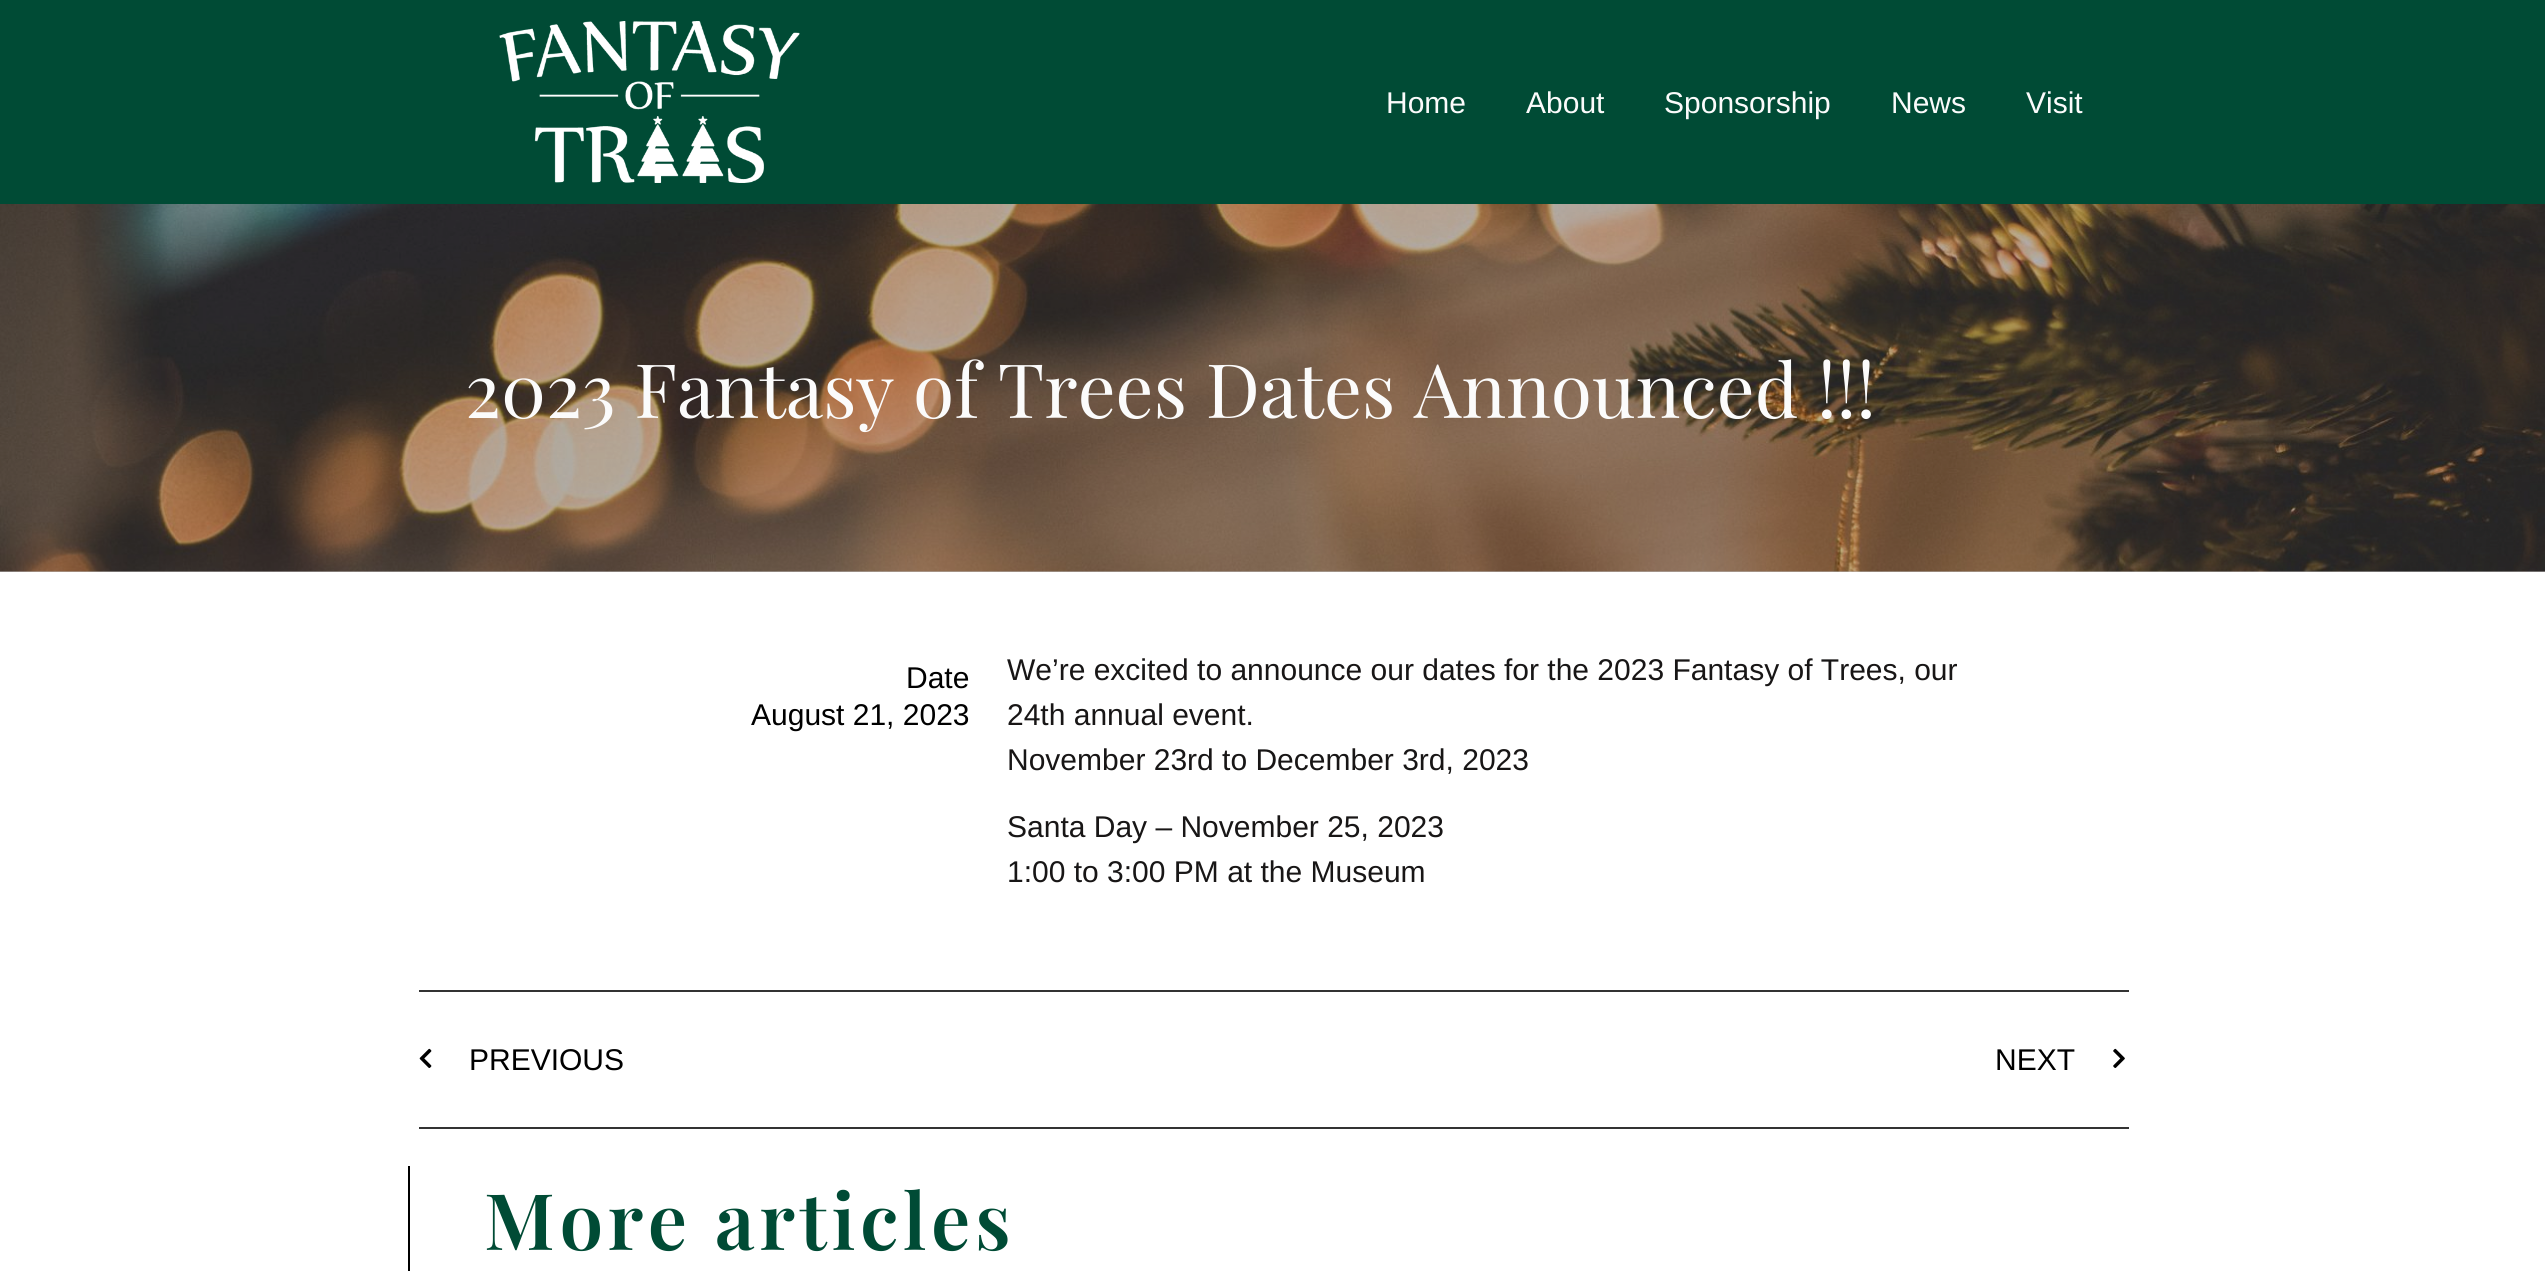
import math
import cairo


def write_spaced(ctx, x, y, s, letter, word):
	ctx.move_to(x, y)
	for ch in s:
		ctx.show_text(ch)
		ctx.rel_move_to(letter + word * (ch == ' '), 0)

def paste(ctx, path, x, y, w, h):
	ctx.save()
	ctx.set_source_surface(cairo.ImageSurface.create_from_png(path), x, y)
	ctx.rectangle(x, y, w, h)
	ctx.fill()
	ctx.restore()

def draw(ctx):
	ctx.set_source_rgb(1, 1, 1)
	ctx.paint()
	ctx.set_source_rgb(0.729, 0.725, 0.725)
	ctx.rectangle(0, 571, 2545, 1)
	ctx.fill()
	ctx.set_source_rgb(0, 0.294, 0.208)
	ctx.rectangle(0, 0, 2545, 204)
	ctx.fill()
	paste(ctx, 'media/1.png', 499, 21, 301, 162)
	ctx.select_font_face('Liberation Sans')
	ctx.set_font_size(30)
	ctx.set_source_rgb(0.984, 0.984, 0.984)
	for x, y, s in [
		(1386, 113, 'Home'),
		(1526, 113, 'About'),
		(1664, 113, 'Sponsorship'),
		(1891, 113, 'News'),
		(2026, 113, 'Visit'),
	]:
		ctx.move_to(x, y)
		ctx.show_text(s)
	paste(ctx, 'media/2.png', 0, 204, 2545, 368)
	ctx.select_font_face('Playfair Display')
	ctx.set_font_size(75)
	ctx.move_to(465, 418)
	ctx.show_text('2023 Fantasy of Trees Dates Announced !!!')
	ctx.select_font_face('Liberation Sans')
	ctx.set_font_size(30)
	ctx.set_source_rgb(0, 0, 0)
	ctx.move_to(906, 688)
	ctx.show_text('Date')
	ctx.move_to(751, 725)
	ctx.show_text('August 21, 2023')
	ctx.set_source_rgb(0.094, 0.086, 0.086)
	for x, y, s in [
		(1007, 680, 'We’re excited to announce our dates for the 2023 Fantasy of Trees, our'),
		(1007, 725, '24th annual event.'),
		(1007, 770, 'November 23rd to December 3rd, 2023'),
		(1007, 837, 'Santa Day – November 25, 2023'),
		(1007, 882, '1:00 to 3:00 PM at the Museum'),
	]:
		ctx.move_to(x, y)
		ctx.show_text(s)
	ctx.set_source_rgb(0.2, 0.2, 0.2)
	ctx.rectangle(419, 990, 1710, 2)
	ctx.fill()
	ctx.rectangle(419, 1127, 1710, 2)
	ctx.fill()
	paste(ctx, 'media/3.png', 419, 1048, 13, 20)
	ctx.set_source_rgb(0, 0, 0)
	ctx.move_to(469, 1070)
	ctx.show_text('PREVIOUS')
	ctx.move_to(1995, 1070)
	ctx.show_text('NEXT')
	paste(ctx, 'media/4.png', 2113, 1048, 12, 20)
	ctx.rectangle(408, 1166, 2, 105)
	ctx.fill()
	ctx.select_font_face('Playfair Display SemiBold')
	ctx.set_font_size(78)
	ctx.set_source_rgb(0, 0.294, 0.208)
	write_spaced(ctx, 484, 1250, 'More articles', 4.5, 0)


surface = cairo.ImageSurface(cairo.FORMAT_RGB24, 2545, 1280)
ctx = cairo.Context(surface)
options = cairo.FontOptions()
options.set_hint_metrics(cairo.HINT_METRICS_OFF)
options.set_hint_style(cairo.HINT_STYLE_NONE)
ctx.set_font_options(options)
ctx.set_miter_limit(4)
draw(ctx)
surface.write_to_png('image.png')
